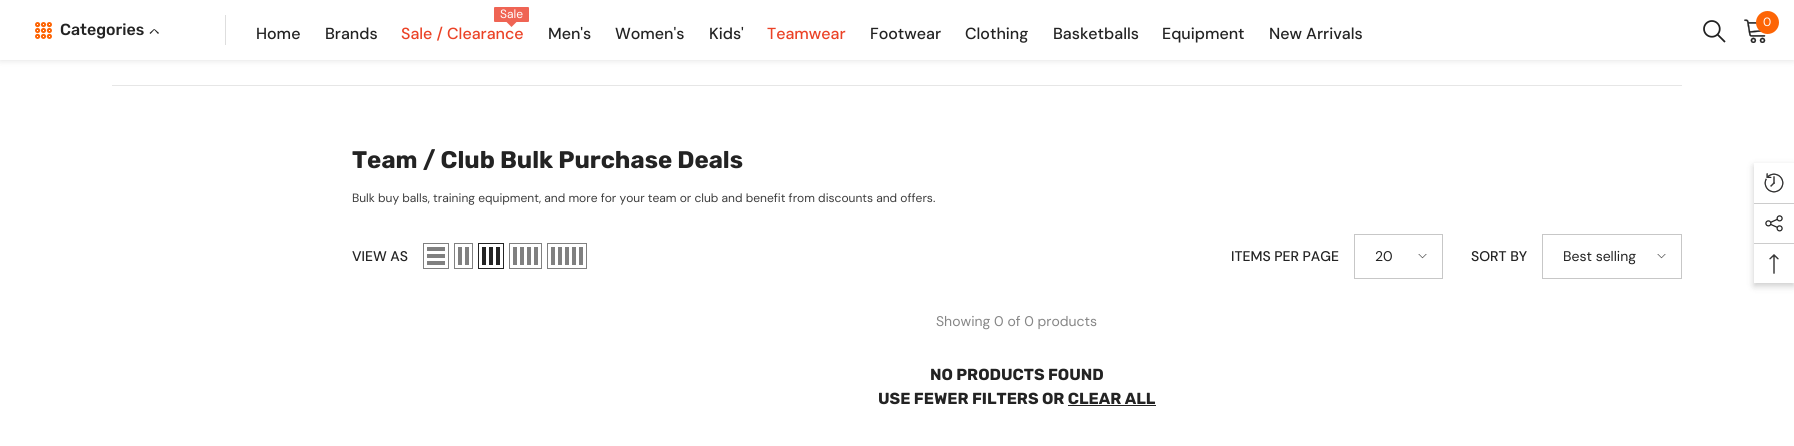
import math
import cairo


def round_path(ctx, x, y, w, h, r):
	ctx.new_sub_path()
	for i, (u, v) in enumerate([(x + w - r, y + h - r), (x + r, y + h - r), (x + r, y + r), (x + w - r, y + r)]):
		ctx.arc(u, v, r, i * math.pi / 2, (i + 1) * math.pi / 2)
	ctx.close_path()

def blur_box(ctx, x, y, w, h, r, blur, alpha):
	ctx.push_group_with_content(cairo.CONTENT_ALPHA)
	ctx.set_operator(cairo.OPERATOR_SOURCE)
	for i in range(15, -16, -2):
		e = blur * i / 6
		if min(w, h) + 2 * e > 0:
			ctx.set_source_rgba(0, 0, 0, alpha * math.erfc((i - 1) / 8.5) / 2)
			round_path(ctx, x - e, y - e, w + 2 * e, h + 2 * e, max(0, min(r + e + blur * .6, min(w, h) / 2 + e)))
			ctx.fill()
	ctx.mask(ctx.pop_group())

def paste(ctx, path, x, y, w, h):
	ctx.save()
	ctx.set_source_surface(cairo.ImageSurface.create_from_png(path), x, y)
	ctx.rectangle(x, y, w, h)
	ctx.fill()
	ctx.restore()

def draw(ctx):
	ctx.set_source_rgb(1, 1, 1)
	ctx.paint()
	ctx.set_source_rgb(0, 0, 0)
	blur_box(ctx, 0, 1, 1794, 60, 0, 3, 0.1)
	ctx.set_source_rgb(1, 1, 1)
	ctx.rectangle(0, 0, 1794, 60)
	ctx.fill()
	paste(ctx, 'media/1.png', 35, 22, 17, 17)
	ctx.select_font_face('Rubik Medium')
	ctx.set_font_size(16)
	ctx.set_source_rgb(0.137, 0.137, 0.137)
	ctx.move_to(60, 35)
	ctx.show_text('Categories')
	ctx.set_source_rgb(0.125, 0.125, 0.125)
	ctx.new_path()
	ctx.move_to(149.5, 33)
	ctx.line_to(154, 29)
	ctx.line_to(154.5, 29.5)
	ctx.line_to(150.5, 34)
	ctx.close_path()
	ctx.fill()
	ctx.new_path()
	ctx.move_to(158, 34)
	ctx.line_to(154, 29.5)
	ctx.line_to(154.5, 29)
	ctx.line_to(159, 33)
	ctx.close_path()
	ctx.fill()
	ctx.set_source_rgb(0.871, 0.871, 0.871)
	ctx.rectangle(225, 15, 1, 30)
	ctx.fill()
	ctx.select_font_face('DM Sans Medium')
	ctx.set_source_rgb(0.137, 0.137, 0.137)
	ctx.move_to(256, 39)
	ctx.show_text('Home')
	ctx.move_to(325, 39)
	ctx.show_text('Brands')
	ctx.set_source_rgb(0.937, 0.392, 0.329)
	round_path(ctx, 494, 7, 35, 15, 1)
	ctx.fill()
	ctx.select_font_face('DM Sans')
	ctx.set_font_size(12)
	ctx.set_source_rgb(1, 1, 1)
	ctx.move_to(500, 18)
	ctx.show_text('Sale')
	ctx.select_font_face('DM Sans Medium')
	ctx.set_font_size(16)
	ctx.set_source_rgb(0.918, 0.259, 0.149)
	ctx.move_to(401, 39)
	ctx.show_text('Sale / Clearance')
	ctx.set_source_rgb(0.937, 0.392, 0.329)
	ctx.new_path()
	ctx.move_to(506.5, 22)
	ctx.line_to(516.5, 22)
	ctx.line_to(511.5, 27)
	ctx.close_path()
	ctx.fill()
	ctx.set_source_rgb(0.137, 0.137, 0.137)
	for x, y, s in [
		(548, 39, 'Men\'s'),
		(615, 39, 'Women\'s'),
		(709, 39, 'Kids\''),
	]:
		ctx.move_to(x, y)
		ctx.show_text(s)
	ctx.set_source_rgb(0.918, 0.259, 0.149)
	ctx.move_to(767, 39)
	ctx.show_text('Teamwear')
	ctx.set_source_rgb(0.137, 0.137, 0.137)
	for x, y, s in [
		(870, 39, 'Footwear'),
		(965, 39, 'Clothing'),
		(1053, 39, 'Basketballs'),
		(1162, 39, 'Equipment'),
		(1269, 39, 'New Arrivals'),
	]:
		ctx.move_to(x, y)
		ctx.show_text(s)
	paste(ctx, 'media/2.png', 1703, 20, 23, 23)
	paste(ctx, 'media/3.png', 1744, 19, 22, 24)
	ctx.set_source_rgb(0.992, 0.396, 0.024)
	ctx.arc(1767.5, 22.5, 11.5, 0, 2 * math.pi)
	ctx.fill()
	ctx.select_font_face('DM Sans')
	ctx.set_font_size(12)
	ctx.set_source_rgb(1, 1, 1)
	ctx.move_to(1763, 26)
	ctx.show_text('0')
	ctx.set_source_rgb(0.902, 0.902, 0.902)
	ctx.rectangle(112, 85, 1570, 1)
	ctx.fill()
	ctx.select_font_face('Rubik', cairo.FONT_SLANT_NORMAL, cairo.FONT_WEIGHT_BOLD)
	ctx.set_font_size(24)
	ctx.set_source_rgb(0.137, 0.137, 0.137)
	ctx.move_to(352, 168)
	ctx.show_text('Team / Club Bulk Purchase Deals')
	ctx.select_font_face('DM Sans')
	ctx.set_font_size(12)
	ctx.set_source_rgb(0.235, 0.235, 0.235)
	ctx.move_to(352, 202)
	ctx.show_text('Bulk buy balls, training equipment, and more for your team or club and benefit from discounts and offers.')
	ctx.select_font_face('DM Sans Medium')
	ctx.set_font_size(14)
	ctx.set_source_rgb(0.137, 0.137, 0.137)
	ctx.move_to(352, 261)
	ctx.show_text('VIEW AS')
	ctx.rectangle(423.5, 243.5, 25, 25)
	ctx.set_source_rgb(0.502, 0.502, 0.502)
	ctx.set_line_width(1)
	ctx.stroke()
	ctx.rectangle(427, 261, 18, 4)
	ctx.rectangle(427, 254, 18, 4)
	ctx.rectangle(427, 247, 18, 4)
	ctx.fill()
	ctx.rectangle(454.5, 243.5, 18, 25)
	ctx.stroke()
	ctx.rectangle(465, 247, 4, 18)
	ctx.fill()
	ctx.rectangle(458, 247, 4, 18)
	ctx.fill()
	ctx.rectangle(478.5, 243.5, 25, 25)
	ctx.set_source_rgb(0.137, 0.137, 0.137)
	ctx.stroke()
	ctx.rectangle(496, 247, 4, 18)
	ctx.rectangle(489, 247, 4, 18)
	ctx.rectangle(482, 247, 4, 18)
	ctx.fill()
	ctx.rectangle(509.5, 243.5, 32, 25)
	ctx.set_source_rgb(0.502, 0.502, 0.502)
	ctx.stroke()
	ctx.rectangle(534, 247, 4, 18)
	ctx.rectangle(527, 247, 4, 18)
	ctx.rectangle(520, 247, 4, 18)
	ctx.rectangle(513, 247, 4, 18)
	ctx.fill()
	ctx.rectangle(547.5, 243.5, 39, 25)
	ctx.stroke()
	ctx.rectangle(579, 247, 4, 18)
	ctx.rectangle(572, 247, 4, 18)
	ctx.rectangle(565, 247, 4, 18)
	ctx.rectangle(558, 247, 4, 18)
	ctx.rectangle(551, 247, 4, 18)
	ctx.fill()
	ctx.set_source_rgb(0.137, 0.137, 0.137)
	ctx.move_to(1231, 261)
	ctx.show_text('ITEMS PER PAGE')
	ctx.rectangle(1354.5, 234.5, 88, 44)
	ctx.set_source_rgb(0.78, 0.78, 0.78)
	ctx.stroke()
	ctx.select_font_face('DM Sans')
	ctx.set_source_rgb(0.137, 0.137, 0.137)
	ctx.move_to(1375, 261)
	ctx.show_text('20')
	paste(ctx, 'media/4.png', 1418, 254, 9, 5)
	ctx.select_font_face('DM Sans Medium')
	ctx.move_to(1471, 261)
	ctx.show_text('SORT BY')
	ctx.rectangle(1542.5, 234.5, 139, 44)
	ctx.set_source_rgb(0.78, 0.78, 0.78)
	ctx.stroke()
	ctx.select_font_face('DM Sans')
	ctx.set_source_rgb(0.137, 0.137, 0.137)
	ctx.move_to(1563, 261)
	ctx.show_text('Best selling')
	paste(ctx, 'media/4.png', 1657, 254, 9, 5)
	ctx.set_source_rgb(0.525, 0.525, 0.525)
	ctx.move_to(936, 326)
	ctx.show_text('Showing 0 of 0 products')
	ctx.select_font_face('Rubik', cairo.FONT_SLANT_NORMAL, cairo.FONT_WEIGHT_BOLD)
	ctx.set_font_size(16)
	ctx.set_source_rgb(0.137, 0.137, 0.137)
	ctx.move_to(930, 380)
	ctx.show_text('NO PRODUCTS FOUND')
	ctx.move_to(878, 404)
	ctx.show_text('USE FEWER FILTERS OR CLEAR ALL')
	ctx.rectangle(1068, 405, 88, 1)
	ctx.fill()
	ctx.save()
	ctx.set_fill_rule(cairo.FILL_RULE_EVEN_ODD)
	ctx.new_path()
	ctx.move_to(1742, 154)
	ctx.line_to(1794, 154)
	ctx.line_to(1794, 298)
	ctx.line_to(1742, 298)
	ctx.close_path()
	ctx.move_to(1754, 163)
	ctx.line_to(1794, 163)
	ctx.line_to(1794, 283)
	ctx.line_to(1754, 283)
	ctx.close_path()
	ctx.clip()
	ctx.set_source_rgb(0, 0, 0)
	blur_box(ctx, 1754, 166, 40, 120, 0, 3.5, 0.2)
	ctx.restore()
	paste(ctx, 'media/5.png', 1764, 173, 20, 20)
	ctx.set_source_rgb(0.8, 0.8, 0.8)
	ctx.rectangle(1754, 203, 40, 1)
	ctx.fill()
	paste(ctx, 'media/6.png', 1765, 215, 18, 17)
	ctx.rectangle(1754, 243, 40, 1)
	ctx.fill()
	paste(ctx, 'media/7.png', 1769, 254, 10, 20)


surface = cairo.ImageSurface(cairo.FORMAT_RGB24, 1794, 446)
ctx = cairo.Context(surface)
options = cairo.FontOptions()
options.set_hint_metrics(cairo.HINT_METRICS_OFF)
options.set_hint_style(cairo.HINT_STYLE_NONE)
ctx.set_font_options(options)
ctx.set_miter_limit(4)
draw(ctx)
surface.write_to_png('image.png')
